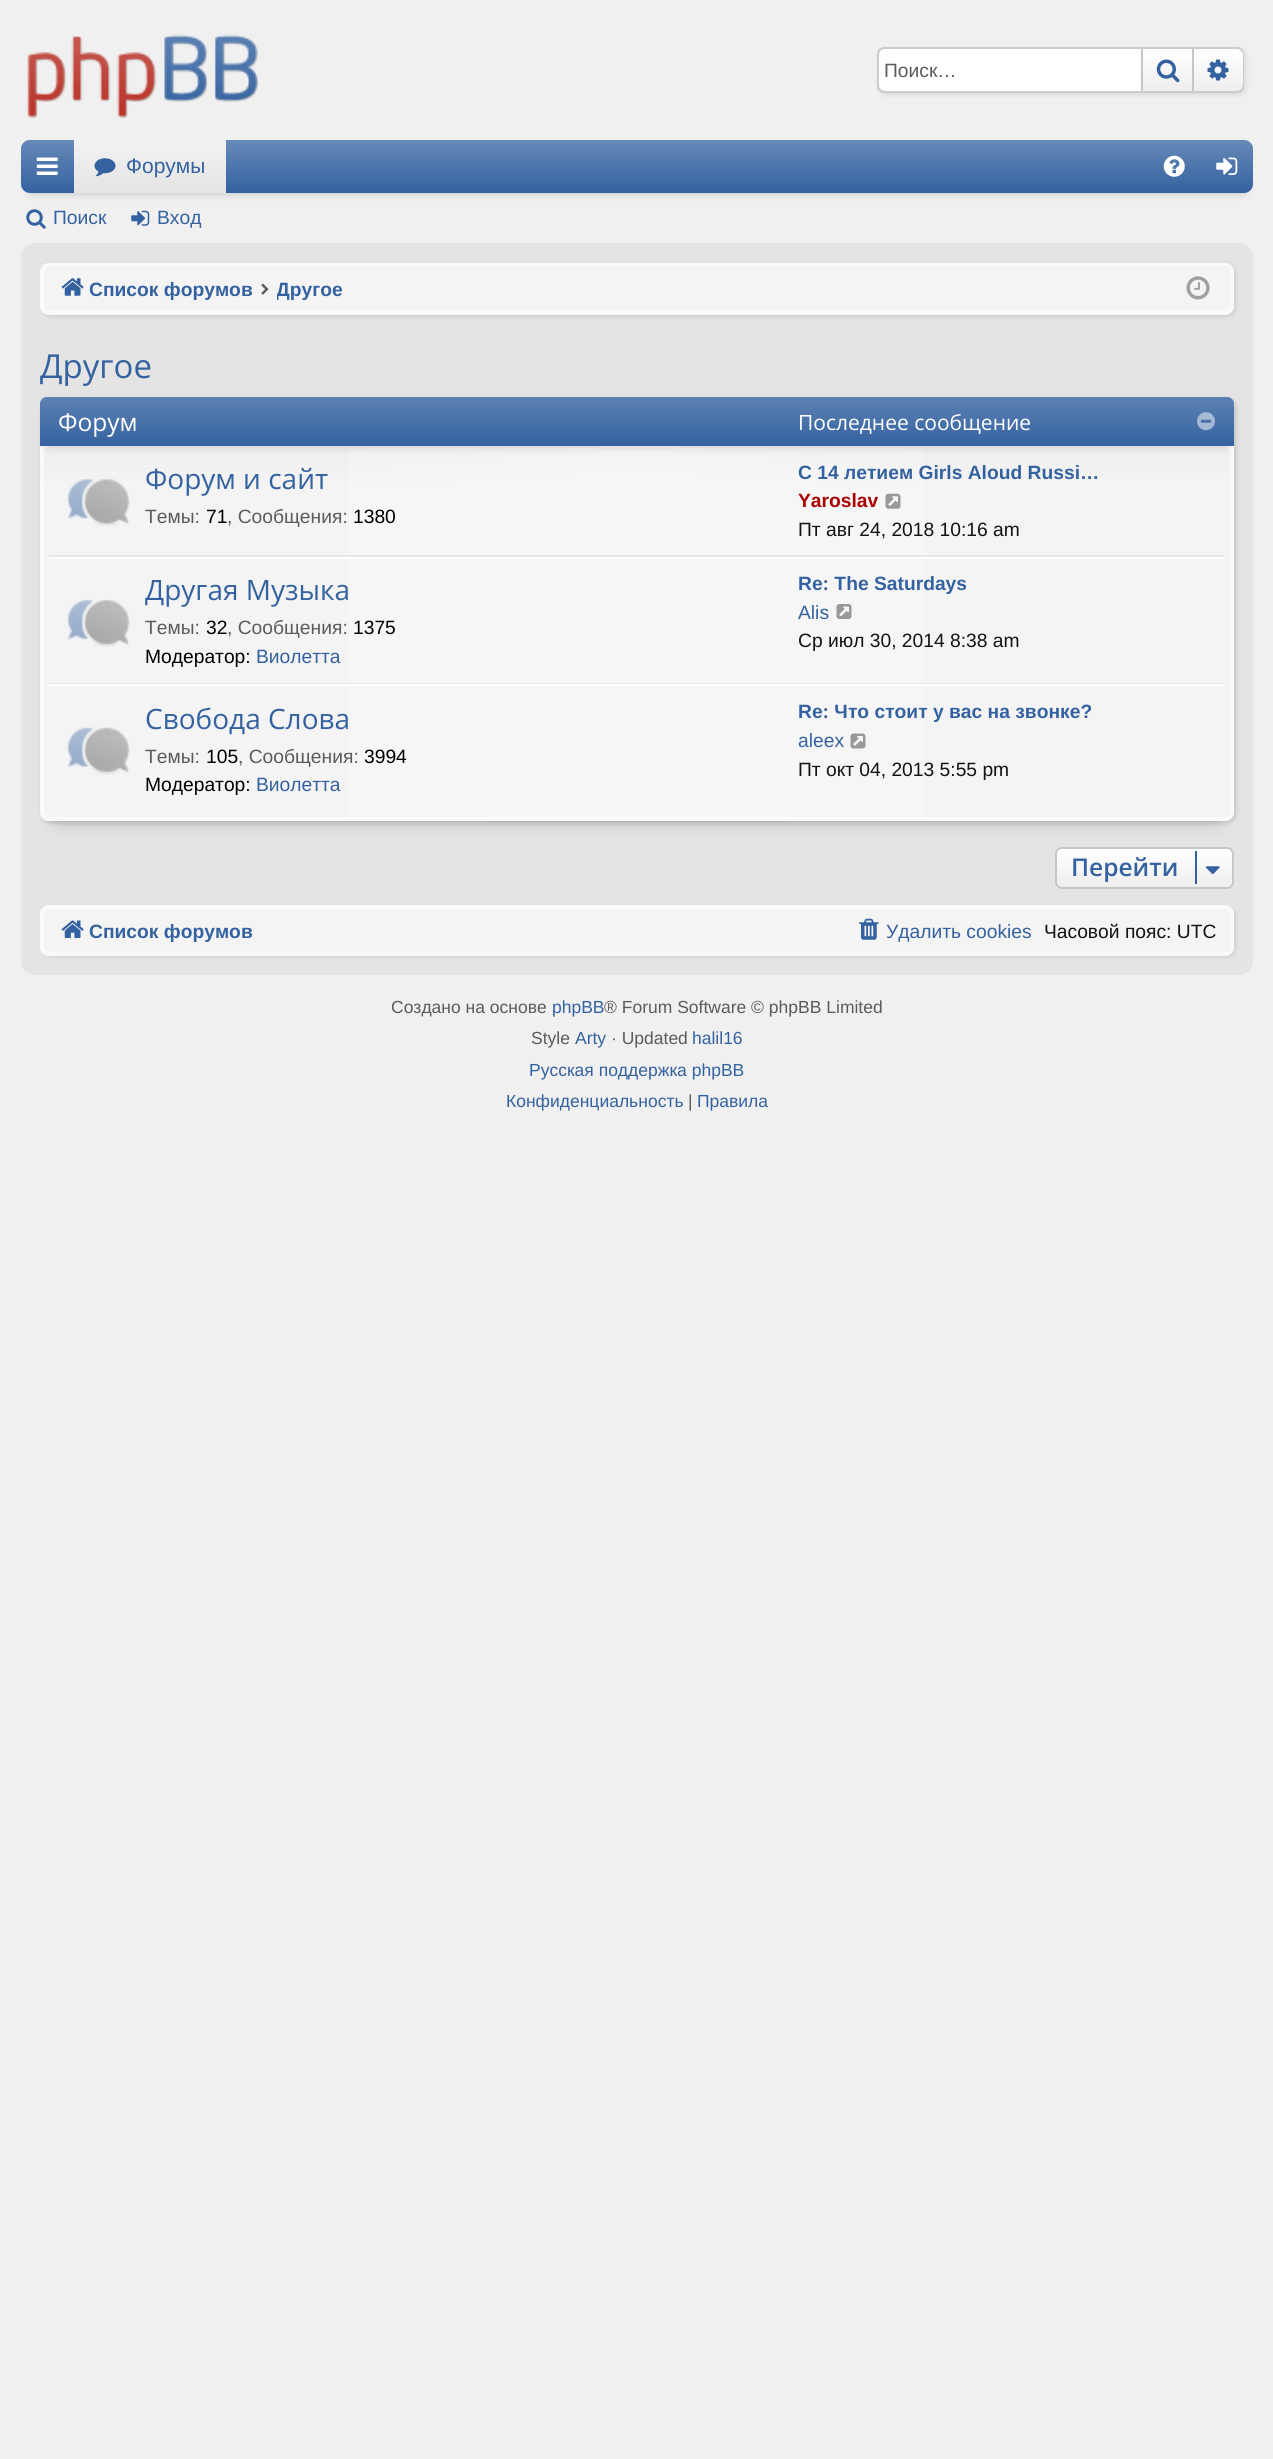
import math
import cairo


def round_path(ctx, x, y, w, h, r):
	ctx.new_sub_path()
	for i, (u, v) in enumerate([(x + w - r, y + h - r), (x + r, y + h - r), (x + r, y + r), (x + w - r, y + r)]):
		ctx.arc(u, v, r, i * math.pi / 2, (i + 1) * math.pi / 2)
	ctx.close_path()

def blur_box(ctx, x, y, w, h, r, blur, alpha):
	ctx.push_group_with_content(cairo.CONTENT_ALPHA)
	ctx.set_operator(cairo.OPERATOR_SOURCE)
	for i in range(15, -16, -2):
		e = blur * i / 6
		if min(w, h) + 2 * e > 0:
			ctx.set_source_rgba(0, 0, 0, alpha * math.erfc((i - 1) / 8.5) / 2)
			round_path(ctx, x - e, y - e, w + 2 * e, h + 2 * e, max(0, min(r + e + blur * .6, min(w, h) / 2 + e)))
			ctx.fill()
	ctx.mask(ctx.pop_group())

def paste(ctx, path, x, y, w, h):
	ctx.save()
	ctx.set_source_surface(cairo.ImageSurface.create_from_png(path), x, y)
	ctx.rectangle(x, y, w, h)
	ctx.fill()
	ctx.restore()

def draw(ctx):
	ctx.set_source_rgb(0.941, 0.941, 0.941)
	ctx.paint()
	paste(ctx, 'media/1.png', 27, 34, 232, 84)
	ctx.set_source_rgb(0, 0, 0)
	blur_box(ctx, 879, 49, 367, 46, 7, 2.5, 0.1)
	round_path(ctx, 878, 48, 365, 44, 6)
	ctx.set_source_rgb(0.8, 0.8, 0.8)
	ctx.stroke()
	ctx.set_source_rgb(1, 1, 1)
	ctx.new_path()
	ctx.move_to(886, 49)
	ctx.line_to(1141, 49)
	ctx.line_to(1141, 91)
	ctx.line_to(886, 91)
	ctx.curve_to(882, 91, 879, 88, 879, 84)
	ctx.line_to(879, 56)
	ctx.curve_to(879, 52, 882, 49, 886, 49)
	ctx.close_path()
	ctx.fill()
	ctx.select_font_face('Liberation Sans')
	ctx.set_font_size(19.25)
	ctx.set_source_rgb(0.357, 0.357, 0.357)
	ctx.move_to(884, 77)
	ctx.show_text('Поиск…')
	gradient = cairo.LinearGradient(1167, 49, 1167, 91)
	gradient.add_color_stop_rgba(0, 1, 1, 1, 1)
	gradient.add_color_stop_rgba(1, 0.933, 0.933, 0.933, 1)
	ctx.set_source(gradient)
	ctx.rectangle(1143, 49, 49, 42)
	ctx.fill()
	ctx.set_source_rgb(0.776, 0.776, 0.776)
	ctx.rectangle(1192, 49, 2, 42)
	ctx.fill()
	ctx.rectangle(1141, 49, 2, 42)
	ctx.fill()
	paste(ctx, 'media/2.png', 1156, 59, 24, 24)
	ctx.set_source_rgb(0.933, 0.933, 0.933)
	ctx.new_path()
	ctx.move_to(1194, 49)
	ctx.line_to(1236, 49)
	ctx.curve_to(1240, 49, 1243, 52, 1243, 56)
	ctx.line_to(1243, 84)
	ctx.curve_to(1243, 88, 1240, 91, 1236, 91)
	ctx.line_to(1194, 91)
	ctx.close_path()
	ctx.fill()
	gradient = cairo.LinearGradient(1218, 49, 1218, 91)
	gradient.add_color_stop_rgba(0, 1, 1, 1, 1)
	gradient.add_color_stop_rgba(1, 1, 1, 1, 0)
	ctx.set_source(gradient)
	ctx.new_path()
	ctx.move_to(1194, 49)
	ctx.line_to(1236, 49)
	ctx.curve_to(1240, 49, 1243, 52, 1243, 56)
	ctx.line_to(1243, 84)
	ctx.curve_to(1243, 88, 1240, 91, 1236, 91)
	ctx.line_to(1194, 91)
	ctx.close_path()
	ctx.fill()
	paste(ctx, 'media/3.png', 1207, 59, 22, 22)
	ctx.set_source_rgb(0, 0, 0)
	blur_box(ctx, 30, 158, 1214, 35, 0, 4.5, 0.2)
	ctx.set_source_rgb(0.204, 0.384, 0.627)
	round_path(ctx, 21, 140, 1232, 53, 9)
	ctx.fill()
	gradient = cairo.LinearGradient(637, 140, 637, 193)
	gradient.add_color_stop_rgba(0, 1, 1, 1, 0.25)
	gradient.add_color_stop_rgba(1, 1, 1, 1, 0)
	ctx.set_source(gradient)
	round_path(ctx, 21, 140, 1232, 53, 9)
	ctx.fill()
	paste(ctx, 'media/4.png', 36, 157, 22, 18)
	gradient = cairo.LinearGradient(150, 140, 150, 193)
	gradient.add_color_stop_rgba(0, 0.949, 0.949, 0.949, 1)
	gradient.add_color_stop_rgba(1, 0.894, 0.894, 0.894, 1)
	ctx.set_source(gradient)
	ctx.rectangle(74, 140, 152, 53)
	ctx.fill()
	paste(ctx, 'media/5.png', 94, 158, 22, 19)
	ctx.set_font_size(21)
	ctx.set_source_rgb(0.204, 0.384, 0.627)
	ctx.move_to(126, 173)
	ctx.show_text('Форумы')
	paste(ctx, 'media/6.png', 1163, 155, 22, 22)
	paste(ctx, 'media/7.png', 1216, 157, 22, 18)
	paste(ctx, 'media/8.png', 26, 209, 20, 20)
	ctx.set_font_size(19.25)
	ctx.move_to(53, 224)
	ctx.show_text('Поиск')
	paste(ctx, 'media/9.png', 131, 210, 19, 16)
	ctx.move_to(157, 224)
	ctx.show_text('Вход')
	ctx.set_source_rgb(0.894, 0.894, 0.894)
	round_path(ctx, 22, 244, 1230, 730, 13)
	ctx.fill_preserve()
	ctx.stroke()
	ctx.set_source_rgb(0, 0, 0)
	blur_box(ctx, 42, 264, 1194, 53, 9, 2, 0.1)
	ctx.set_source_rgb(0.957, 0.957, 0.957)
	round_path(ctx, 40, 263, 1194, 52, 9)
	ctx.fill()
	round_path(ctx, 43, 265, 1188, 47, 6)
	ctx.set_source_rgb(0.98, 0.98, 0.98)
	ctx.stroke()
	round_path(ctx, 41, 264, 1192, 50, 8)
	ctx.set_source_rgb(0.976, 0.976, 0.976)
	ctx.stroke()
	paste(ctx, 'media/10.png', 61, 278, 23, 18)
	ctx.select_font_face('Liberation Sans', cairo.FONT_SLANT_NORMAL, cairo.FONT_WEIGHT_BOLD)
	ctx.set_source_rgb(0.204, 0.384, 0.627)
	ctx.move_to(89, 296)
	ctx.show_text('Список форумов')
	paste(ctx, 'media/11.png', 261, 283, 8, 12)
	ctx.save()
	ctx.rectangle(277, 270, 66, 38)
	ctx.clip()
	ctx.move_to(276, 296)
	ctx.show_text('Другое')
	ctx.restore()
	paste(ctx, 'media/12.png', 1186, 276, 24, 24)
	ctx.select_font_face('Open Sans')
	ctx.set_font_size(33)
	ctx.move_to(40, 378)
	ctx.show_text('Другое')
	ctx.set_source_rgb(0, 0, 0)
	blur_box(ctx, 58, 432, 1158, 389, 0, 9, 0.2)
	blur_box(ctx, 42, 399, 1194, 424, 9, 2.5, 0.15)
	ctx.set_source_rgb(0.957, 0.957, 0.957)
	round_path(ctx, 40, 397, 1194, 424, 9)
	ctx.fill()
	ctx.save()
	round_path(ctx, 40, 397, 1194, 424, 9)
	ctx.clip()
	gradient = cairo.LinearGradient(637, 399, 637, 819)
	gradient.add_color_stop_rgba(0, 0.8, 0.8, 0.8, 0.2)
	gradient.add_color_stop_rgba(0.04, 0.8, 0.8, 0.8, 0.25)
	gradient.add_color_stop_rgba(0.21, 0.8, 0.8, 0.8, 0)
	ctx.set_source(gradient)
	ctx.rectangle(40, 400, 1194, 81)
	ctx.fill()
	ctx.restore()
	gradient = cairo.LinearGradient(42, 609, 1232, 609)
	gradient.add_color_stop_rgba(0, 1, 1, 1, 0)
	gradient.add_color_stop_rgba(0.5, 1, 1, 1, 0.3)
	gradient.add_color_stop_rgba(1, 1, 1, 1, 0)
	ctx.set_source(gradient)
	ctx.rectangle(349, 446, 576, 373)
	ctx.fill()
	round_path(ctx, 43, 400, 1188, 418, 6)
	ctx.set_source_rgba(1, 1, 1, 0.5)
	ctx.stroke()
	round_path(ctx, 41, 398, 1192, 422, 8)
	ctx.set_source_rgb(0.976, 0.976, 0.976)
	ctx.stroke()
	ctx.set_source_rgb(0, 0, 0)
	blur_box(ctx, 49, 415, 1176, 31, 0, 4.5, 0.2)
	ctx.set_source_rgb(0.204, 0.384, 0.627)
	ctx.new_path()
	ctx.move_to(47, 397)
	ctx.line_to(1227, 397)
	ctx.curve_to(1231, 397, 1234, 400, 1234, 404)
	ctx.line_to(1234, 446)
	ctx.line_to(40, 446)
	ctx.line_to(40, 404)
	ctx.curve_to(40, 400, 43, 397, 47, 397)
	ctx.close_path()
	ctx.fill()
	gradient = cairo.LinearGradient(637, 397, 637, 446)
	gradient.add_color_stop_rgba(0, 1, 1, 1, 0.2)
	gradient.add_color_stop_rgba(1, 1, 1, 1, 0)
	ctx.set_source(gradient)
	ctx.new_path()
	ctx.move_to(47, 397)
	ctx.line_to(1227, 397)
	ctx.curve_to(1231, 397, 1234, 400, 1234, 404)
	ctx.line_to(1234, 446)
	ctx.line_to(40, 446)
	ctx.line_to(40, 404)
	ctx.curve_to(40, 400, 43, 397, 47, 397)
	ctx.close_path()
	ctx.fill()
	ctx.set_font_size(24.5)
	ctx.set_source_rgb(1, 1, 1)
	ctx.move_to(58, 431)
	ctx.show_text('Форум')
	ctx.set_font_size(21)
	ctx.move_to(798, 430)
	ctx.show_text('Последнее сообщение')
	paste(ctx, 'media/13.png', 1197, 412, 18, 19)
	ctx.set_source_rgb(0.906, 0.906, 0.906)
	ctx.rectangle(49, 555, 1176, 2)
	ctx.fill()
	paste(ctx, 'media/14.png', 67, 479, 63, 47)
	ctx.set_font_size(28)
	ctx.set_source_rgb(0.204, 0.384, 0.627)
	ctx.move_to(145, 489)
	ctx.show_text('Форум и сайт')
	ctx.select_font_face('Liberation Sans')
	ctx.set_font_size(19.25)
	ctx.set_source_rgb(0.357, 0.357, 0.357)
	ctx.move_to(145, 523)
	ctx.show_text('Темы:')
	ctx.set_source_rgb(0, 0, 0)
	ctx.move_to(206, 523)
	ctx.show_text('71')
	ctx.set_source_rgb(0.357, 0.357, 0.357)
	ctx.move_to(227, 523)
	ctx.show_text(', Сообщения:')
	ctx.set_source_rgb(0, 0, 0)
	ctx.move_to(353, 523)
	ctx.show_text('1380')
	ctx.select_font_face('Liberation Sans', cairo.FONT_SLANT_NORMAL, cairo.FONT_WEIGHT_BOLD)
	ctx.set_source_rgb(0.204, 0.384, 0.627)
	ctx.move_to(798, 479)
	ctx.show_text('С 14 летием Girls Aloud Russi…')
	ctx.set_source_rgb(0.667, 0, 0)
	ctx.move_to(798, 507)
	ctx.show_text('Yaroslav')
	paste(ctx, 'media/15.png', 885, 493, 16, 16)
	ctx.select_font_face('Liberation Sans')
	ctx.set_source_rgb(0.078, 0.078, 0.078)
	ctx.move_to(798, 536)
	ctx.show_text('Пт авг 24, 2018 10:16 am')
	ctx.set_source_rgb(1, 1, 1)
	ctx.rectangle(49, 557, 1176, 2)
	ctx.fill()
	ctx.set_source_rgb(0.906, 0.906, 0.906)
	ctx.rectangle(49, 683, 1176, 1)
	ctx.fill()
	paste(ctx, 'media/16.png', 67, 599, 63, 48)
	ctx.select_font_face('Open Sans')
	ctx.set_font_size(28)
	ctx.set_source_rgb(0.204, 0.384, 0.627)
	ctx.move_to(145, 600)
	ctx.show_text('Другая Музыка')
	ctx.select_font_face('Liberation Sans')
	ctx.set_font_size(19.25)
	ctx.set_source_rgb(0.357, 0.357, 0.357)
	ctx.move_to(145, 634)
	ctx.show_text('Темы:')
	ctx.set_source_rgb(0, 0, 0)
	ctx.move_to(206, 634)
	ctx.show_text('32')
	ctx.set_source_rgb(0.357, 0.357, 0.357)
	ctx.move_to(227, 634)
	ctx.show_text(', Сообщения:')
	ctx.set_source_rgb(0, 0, 0)
	ctx.move_to(353, 634)
	ctx.show_text('1375')
	ctx.move_to(145, 663)
	ctx.show_text('Модератор:')
	ctx.set_source_rgb(0.204, 0.384, 0.627)
	ctx.move_to(256, 663)
	ctx.show_text('Виолетта')
	ctx.select_font_face('Liberation Sans', cairo.FONT_SLANT_NORMAL, cairo.FONT_WEIGHT_BOLD)
	ctx.move_to(798, 590)
	ctx.show_text('Re: The Saturdays')
	ctx.select_font_face('Liberation Sans')
	ctx.move_to(798, 619)
	ctx.show_text('Alis')
	paste(ctx, 'media/17.png', 836, 604, 16, 15)
	ctx.set_source_rgb(0.078, 0.078, 0.078)
	ctx.move_to(798, 647)
	ctx.show_text('Ср июл 30, 2014 8:38 am')
	ctx.set_source_rgb(1, 1, 1)
	ctx.rectangle(49, 684, 1176, 2)
	ctx.fill()
	paste(ctx, 'media/18.png', 67, 727, 63, 48)
	ctx.select_font_face('Open Sans')
	ctx.set_font_size(28)
	ctx.set_source_rgb(0.204, 0.384, 0.627)
	ctx.move_to(145, 729)
	ctx.show_text('Свобода Слова')
	ctx.select_font_face('Liberation Sans')
	ctx.set_font_size(19.25)
	ctx.set_source_rgb(0.357, 0.357, 0.357)
	ctx.move_to(145, 763)
	ctx.show_text('Темы:')
	ctx.set_source_rgb(0, 0, 0)
	ctx.move_to(206, 763)
	ctx.show_text('105')
	ctx.set_source_rgb(0.357, 0.357, 0.357)
	ctx.move_to(238, 763)
	ctx.show_text(', Сообщения:')
	ctx.set_source_rgb(0, 0, 0)
	ctx.move_to(364, 763)
	ctx.show_text('3994')
	ctx.move_to(145, 791)
	ctx.show_text('Модератор:')
	ctx.set_source_rgb(0.204, 0.384, 0.627)
	ctx.move_to(256, 791)
	ctx.show_text('Виолетта')
	ctx.select_font_face('Liberation Sans', cairo.FONT_SLANT_NORMAL, cairo.FONT_WEIGHT_BOLD)
	ctx.move_to(798, 718)
	ctx.show_text('Re: Что стоит у вас на звонке?')
	ctx.select_font_face('Liberation Sans')
	ctx.move_to(798, 747)
	ctx.show_text('aleex')
	paste(ctx, 'media/19.png', 850, 733, 16, 16)
	ctx.set_source_rgb(0.078, 0.078, 0.078)
	ctx.move_to(798, 776)
	ctx.show_text('Пт окт 04, 2013 5:55 pm')
	ctx.set_source_rgb(0.933, 0.933, 0.933)
	round_path(ctx, 1055, 847, 179, 42, 7)
	ctx.fill()
	ctx.save()
	round_path(ctx, 1055, 847, 179, 42, 7)
	ctx.clip()
	gradient = cairo.LinearGradient(1145, 849, 1145, 887)
	gradient.add_color_stop_rgba(0, 1, 1, 1, 1)
	gradient.add_color_stop_rgba(1, 1, 1, 1, 0)
	ctx.set_source(gradient)
	ctx.rectangle(1055, 849, 179, 37)
	ctx.fill()
	ctx.restore()
	round_path(ctx, 1056, 848, 177, 40, 6)
	ctx.set_source_rgb(0.776, 0.776, 0.776)
	ctx.stroke()
	ctx.select_font_face('Open Sans SemiBold')
	ctx.set_font_size(24.5)
	ctx.set_source_rgb(0.204, 0.384, 0.627)
	ctx.move_to(1071, 876)
	ctx.show_text('Перейти')
	ctx.rectangle(1195, 851, 2, 33)
	ctx.fill()
	paste(ctx, 'media/20.png', 1205, 866, 15, 9)
	ctx.set_source_rgb(0, 0, 0)
	blur_box(ctx, 42, 907, 1194, 50, 9, 2, 0.1)
	ctx.set_source_rgb(0.957, 0.957, 0.957)
	round_path(ctx, 40, 905, 1194, 51, 9)
	ctx.fill()
	round_path(ctx, 43, 908, 1188, 45, 6)
	ctx.set_source_rgb(0.98, 0.98, 0.98)
	ctx.stroke()
	round_path(ctx, 41, 906, 1192, 49, 8)
	ctx.set_source_rgb(0.976, 0.976, 0.976)
	ctx.stroke()
	paste(ctx, 'media/21.png', 61, 920, 23, 18)
	ctx.select_font_face('Liberation Sans', cairo.FONT_SLANT_NORMAL, cairo.FONT_WEIGHT_BOLD)
	ctx.set_font_size(19.25)
	ctx.set_source_rgb(0.204, 0.384, 0.627)
	ctx.move_to(89, 938)
	ctx.show_text('Список форумов')
	paste(ctx, 'media/22.png', 859, 918, 20, 22)
	ctx.select_font_face('Liberation Sans')
	ctx.move_to(886, 938)
	ctx.show_text('Удалить cookies')
	ctx.set_source_rgb(0.078, 0.078, 0.078)
	ctx.move_to(1044, 938)
	ctx.show_text('Часовой пояс: UTC')
	ctx.set_font_size(17.5)
	ctx.set_source_rgb(0.357, 0.357, 0.357)
	ctx.move_to(391, 1013)
	ctx.show_text('Создано на основе')
	ctx.set_source_rgb(0.204, 0.384, 0.627)
	ctx.move_to(552, 1013)
	ctx.show_text('phpBB')
	ctx.set_source_rgb(0.357, 0.357, 0.357)
	ctx.move_to(604, 1013)
	ctx.show_text('® Forum Software © phpBB Limited')
	ctx.move_to(531, 1044)
	ctx.show_text('Style')
	ctx.set_source_rgb(0.204, 0.384, 0.627)
	ctx.move_to(575, 1044)
	ctx.show_text('Arty')
	ctx.set_source_rgb(0.357, 0.357, 0.357)
	ctx.move_to(611, 1044)
	ctx.show_text('· Updated')
	ctx.set_source_rgb(0.204, 0.384, 0.627)
	for x, y, s in [
		(692, 1044, 'halil16'),
		(529, 1076, 'Русская поддержка phpBB'),
		(506, 1107, 'Конфиденциальность'),
	]:
		ctx.move_to(x, y)
		ctx.show_text(s)
	ctx.set_source_rgb(0.357, 0.357, 0.357)
	ctx.move_to(688, 1107)
	ctx.show_text('|')
	ctx.set_source_rgb(0.204, 0.384, 0.627)
	ctx.move_to(697, 1107)
	ctx.show_text('Правила')


surface = cairo.ImageSurface(cairo.FORMAT_RGB24, 1273, 2459)
ctx = cairo.Context(surface)
options = cairo.FontOptions()
options.set_hint_metrics(cairo.HINT_METRICS_OFF)
options.set_hint_style(cairo.HINT_STYLE_NONE)
ctx.set_font_options(options)
ctx.set_miter_limit(4)
draw(ctx)
surface.write_to_png('image.png')
